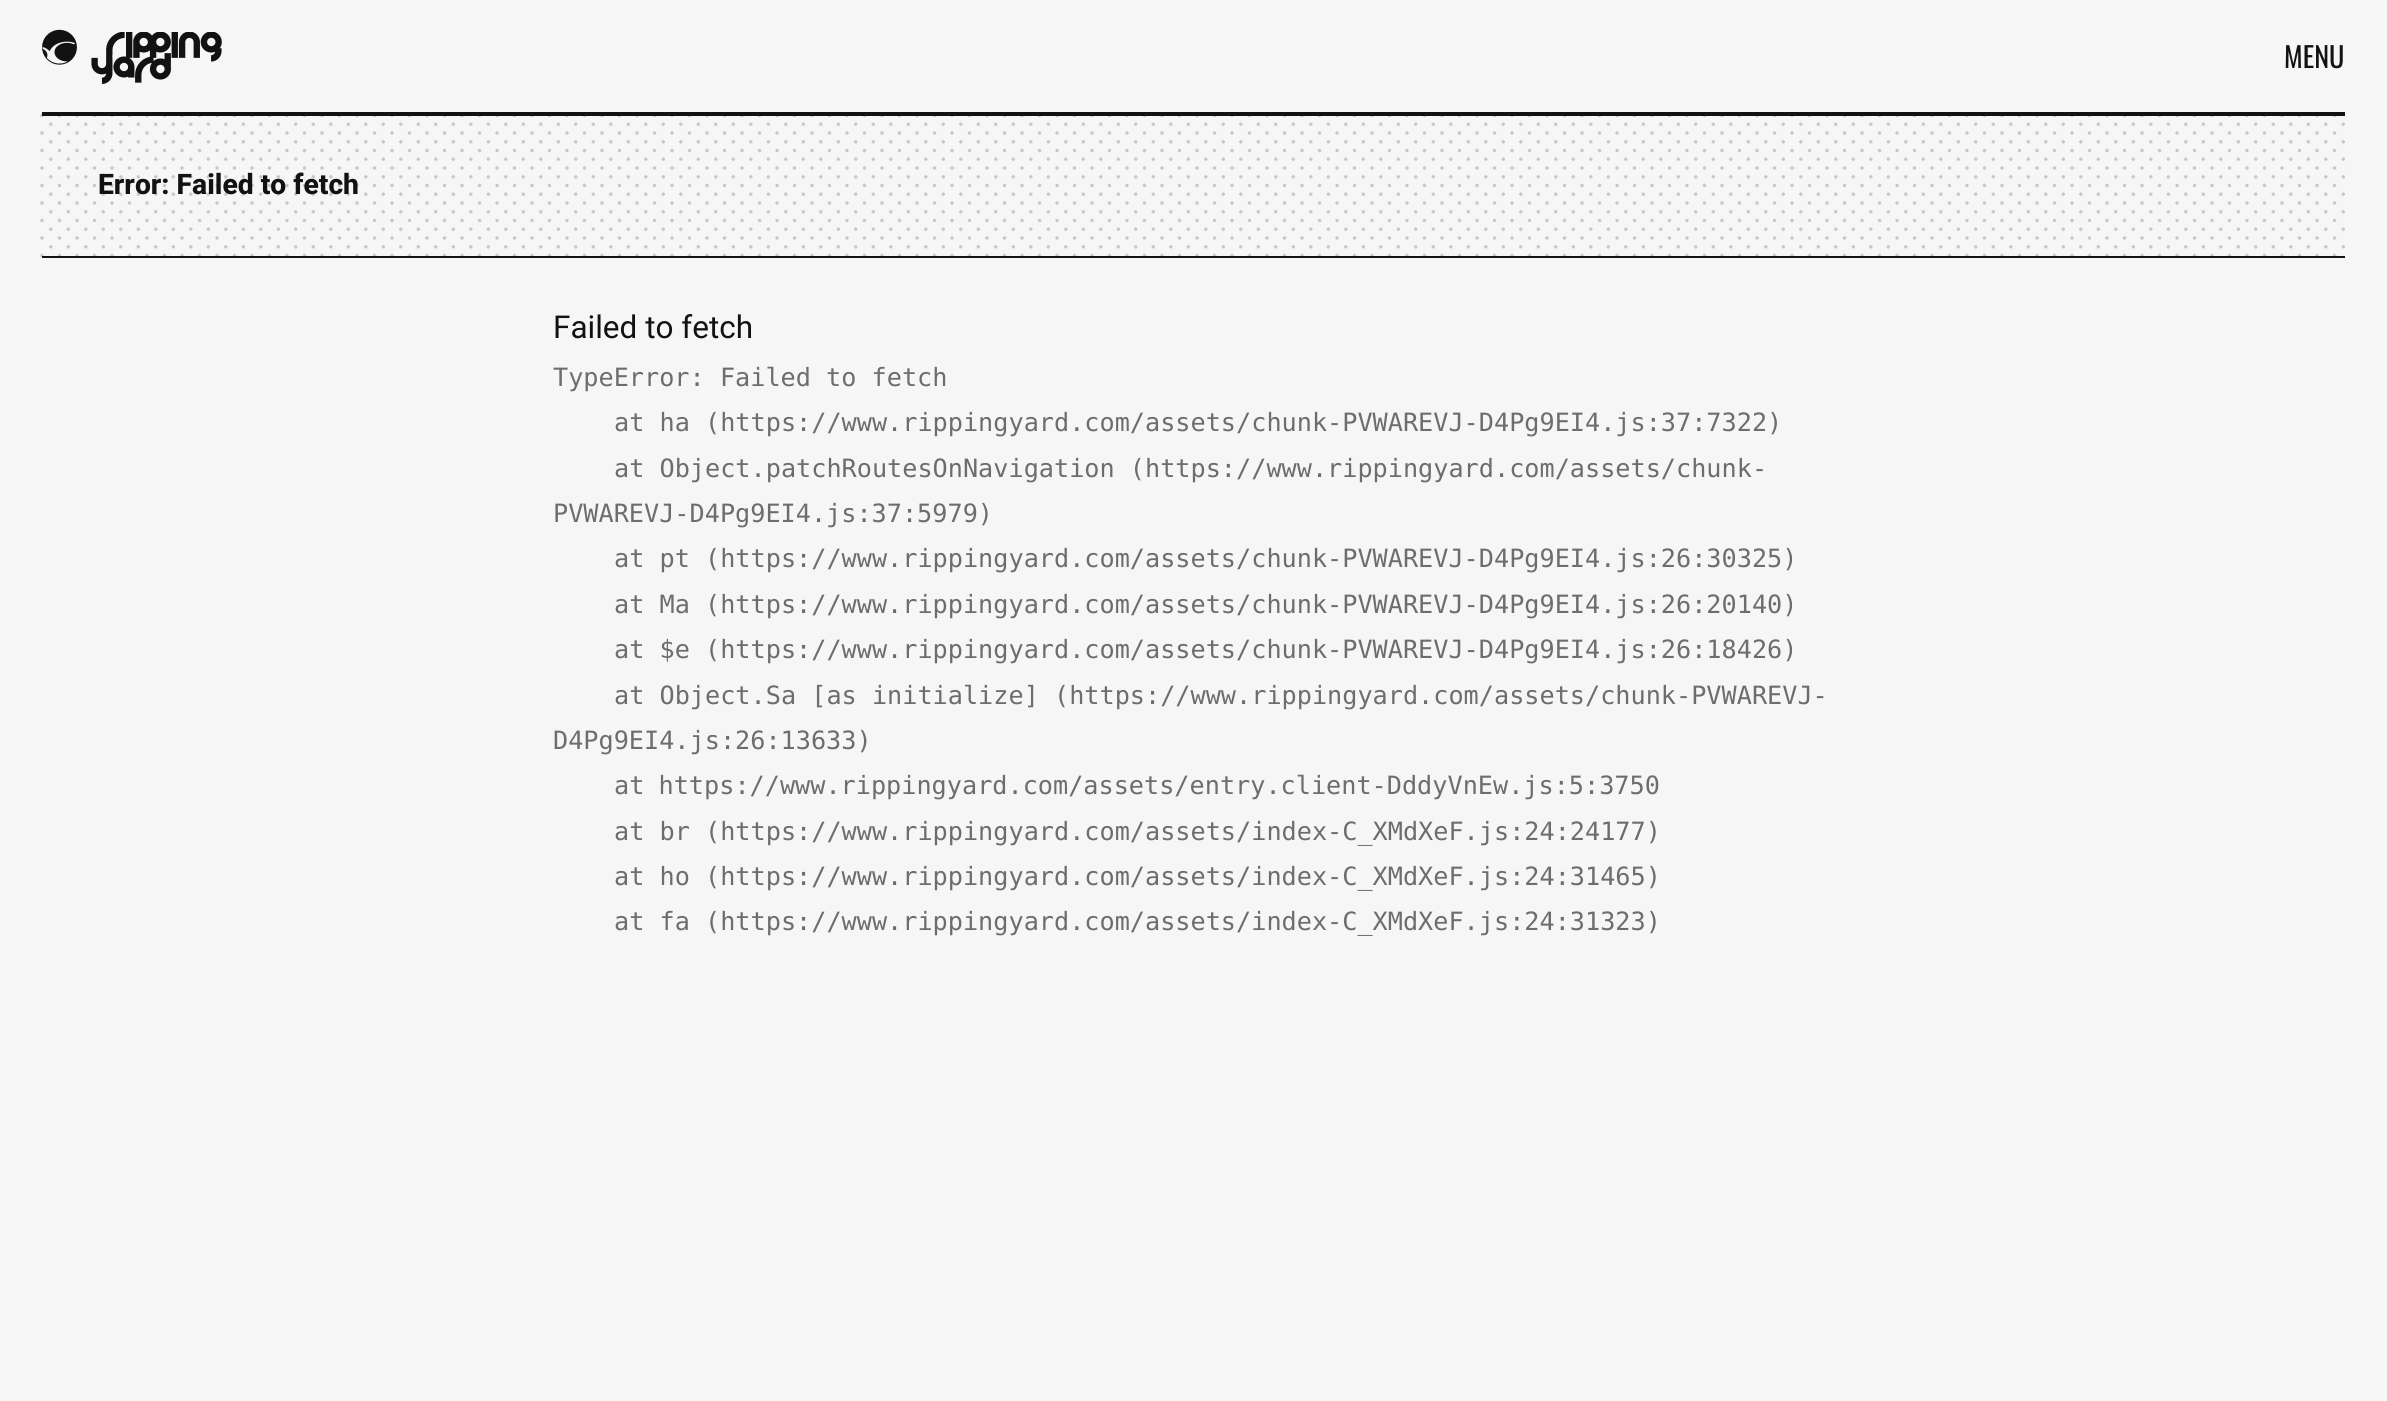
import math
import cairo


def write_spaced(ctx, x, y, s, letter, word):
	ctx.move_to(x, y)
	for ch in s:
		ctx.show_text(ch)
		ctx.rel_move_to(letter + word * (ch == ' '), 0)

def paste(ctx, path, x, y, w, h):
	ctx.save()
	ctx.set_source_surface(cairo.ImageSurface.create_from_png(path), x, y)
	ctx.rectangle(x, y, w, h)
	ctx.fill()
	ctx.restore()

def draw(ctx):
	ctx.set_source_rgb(0.961, 0.961, 0.961)
	ctx.paint()
	ctx.new_path()
	ctx.move_to(42, 115.5)
	ctx.line_to(2334.8, 115.5)
	ctx.set_source_rgb(0.784, 0.784, 0.784)
	ctx.set_line_width(3.5)
	ctx.set_line_cap(cairo.LINE_CAP_ROUND)
	ctx.set_dash([0, 17.5])
	ctx.stroke()
	ctx.set_source_rgb(0.071, 0.071, 0.071)
	ctx.rectangle(42, 112, 2303, 4)
	ctx.fill()
	paste(ctx, 'media/1.png', 42, 29, 35, 36)
	paste(ctx, 'media/2.png', 91, 32, 131, 52)
	ctx.select_font_face('Oswald')
	ctx.set_font_size(28.25)
	ctx.move_to(2284, 68)
	ctx.show_text('MENU')
	ctx.new_path()
	ctx.move_to(42, 133)
	ctx.line_to(2334.8, 133)
	ctx.set_source_rgb(0.784, 0.784, 0.784)
	ctx.stroke()
	ctx.new_path()
	ctx.move_to(42, 150.5)
	ctx.line_to(2334.8, 150.5)
	ctx.stroke()
	ctx.new_path()
	ctx.move_to(42, 168)
	ctx.line_to(2334.8, 168)
	ctx.stroke()
	ctx.new_path()
	ctx.move_to(42, 185.5)
	ctx.line_to(2334.8, 185.5)
	ctx.stroke()
	ctx.new_path()
	ctx.move_to(42, 203)
	ctx.line_to(2334.8, 203)
	ctx.stroke()
	ctx.new_path()
	ctx.move_to(42, 220.5)
	ctx.line_to(2334.8, 220.5)
	ctx.stroke()
	ctx.new_path()
	ctx.move_to(42, 238)
	ctx.line_to(2334.8, 238)
	ctx.stroke()
	ctx.new_path()
	ctx.move_to(42, 255.5)
	ctx.line_to(2334.8, 255.5)
	ctx.stroke()
	ctx.new_path()
	ctx.move_to(50.8, 124.2)
	ctx.line_to(2343.6, 124.2)
	ctx.stroke()
	ctx.new_path()
	ctx.move_to(50.8, 141.8)
	ctx.line_to(2343.6, 141.8)
	ctx.stroke()
	ctx.new_path()
	ctx.move_to(50.8, 159.2)
	ctx.line_to(2343.6, 159.2)
	ctx.stroke()
	ctx.new_path()
	ctx.move_to(50.8, 176.8)
	ctx.line_to(2343.6, 176.8)
	ctx.stroke()
	ctx.new_path()
	ctx.move_to(50.8, 194.2)
	ctx.line_to(2343.6, 194.2)
	ctx.stroke()
	ctx.new_path()
	ctx.move_to(50.8, 211.8)
	ctx.line_to(2343.6, 211.8)
	ctx.stroke()
	ctx.new_path()
	ctx.move_to(50.8, 229.2)
	ctx.line_to(2343.6, 229.2)
	ctx.stroke()
	ctx.new_path()
	ctx.move_to(50.8, 246.8)
	ctx.line_to(2343.6, 246.8)
	ctx.stroke()
	ctx.set_source_rgb(0.071, 0.071, 0.071)
	ctx.rectangle(42, 256, 2303, 2)
	ctx.fill()
	ctx.select_font_face('Roboto ExtraBold')
	ctx.move_to(98, 194)
	ctx.show_text('Error: Failed to fetch')
	ctx.select_font_face('Roboto')
	ctx.set_font_size(31.5)
	ctx.move_to(553, 338)
	ctx.show_text('Failed to fetch')
	ctx.select_font_face('DejaVu Sans Mono')
	ctx.set_font_size(25.2)
	ctx.set_source_rgb(0.427, 0.427, 0.427)
	for x, y, s in [
		(553, 386, 'TypeError: Failed to fetch'),
		(614, 431, 'at ha (https://www.rippingyard.com/assets/chunk-PVWAREVJ-D4Pg9EI4.js:37:7322)'),
		(614, 477, 'at Object.patchRoutesOnNavigation (https://www.rippingyard.com/assets/chunk-'),
		(553, 522, 'PVWAREVJ-D4Pg9EI4.js:37:5979)'),
		(614, 567, 'at pt (https://www.rippingyard.com/assets/chunk-PVWAREVJ-D4Pg9EI4.js:26:30325)'),
		(614, 613, 'at Ma (https://www.rippingyard.com/assets/chunk-PVWAREVJ-D4Pg9EI4.js:26:20140)'),
		(614, 658, 'at $e (https://www.rippingyard.com/assets/chunk-PVWAREVJ-D4Pg9EI4.js:26:18426)'),
		(614, 704, 'at Object.Sa [as initialize] (https://www.rippingyard.com/assets/chunk-PVWAREVJ-'),
		(553, 749, 'D4Pg9EI4.js:26:13633)'),
	]:
		ctx.move_to(x, y)
		ctx.show_text(s)
	write_spaced(ctx, 614, 794, 'at https://www.rippingyard.com/assets/entry.client-DddyVnEw.js:5:3750', 0, -1)
	for x, y, s in [
		(614, 840, 'at br (https://www.rippingyard.com/assets/index-C_XMdXeF.js:24:24177)'),
		(614, 885, 'at ho (https://www.rippingyard.com/assets/index-C_XMdXeF.js:24:31465)'),
		(614, 930, 'at fa (https://www.rippingyard.com/assets/index-C_XMdXeF.js:24:31323)'),
	]:
		ctx.move_to(x, y)
		ctx.show_text(s)


surface = cairo.ImageSurface(cairo.FORMAT_RGB24, 2387, 1401)
ctx = cairo.Context(surface)
options = cairo.FontOptions()
options.set_hint_metrics(cairo.HINT_METRICS_OFF)
options.set_hint_style(cairo.HINT_STYLE_NONE)
ctx.set_font_options(options)
ctx.set_miter_limit(4)
draw(ctx)
surface.write_to_png('image.png')
